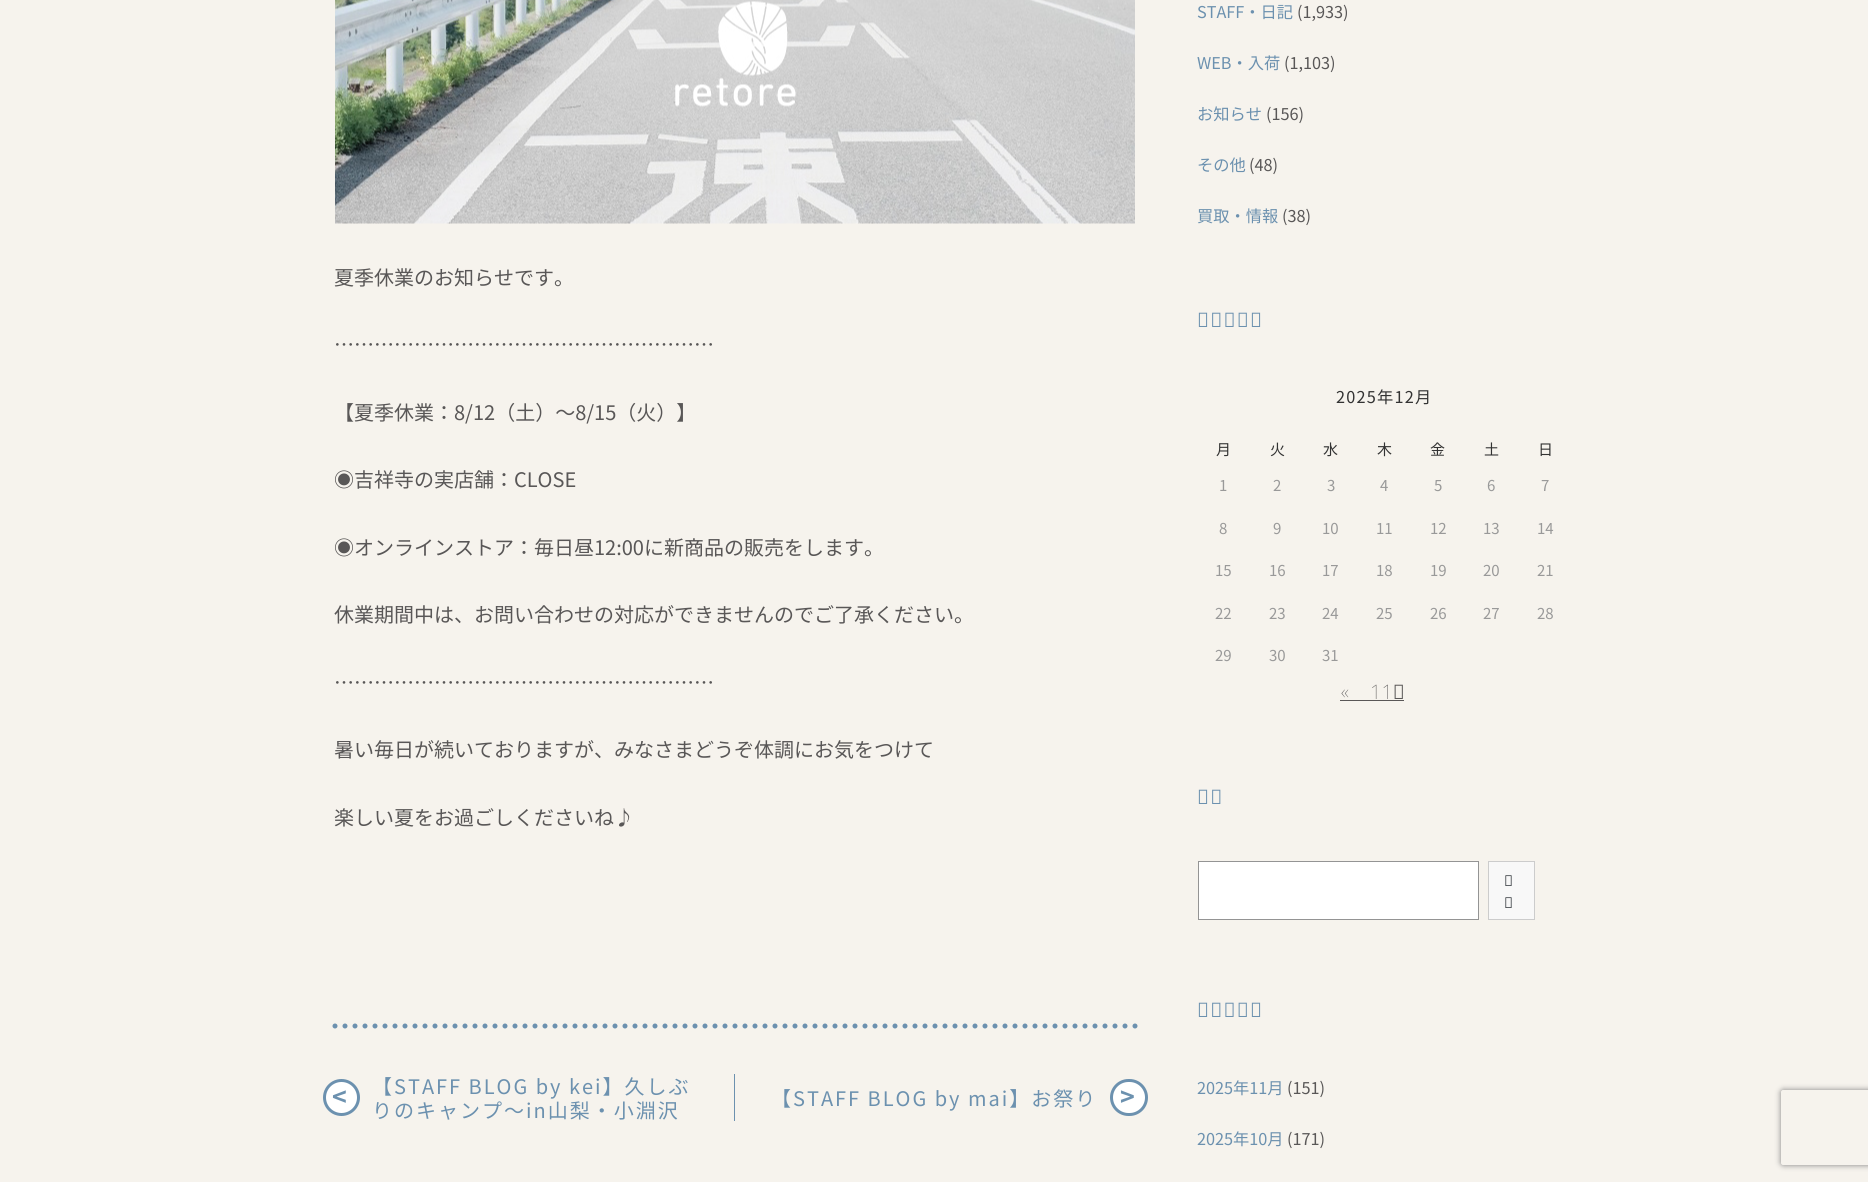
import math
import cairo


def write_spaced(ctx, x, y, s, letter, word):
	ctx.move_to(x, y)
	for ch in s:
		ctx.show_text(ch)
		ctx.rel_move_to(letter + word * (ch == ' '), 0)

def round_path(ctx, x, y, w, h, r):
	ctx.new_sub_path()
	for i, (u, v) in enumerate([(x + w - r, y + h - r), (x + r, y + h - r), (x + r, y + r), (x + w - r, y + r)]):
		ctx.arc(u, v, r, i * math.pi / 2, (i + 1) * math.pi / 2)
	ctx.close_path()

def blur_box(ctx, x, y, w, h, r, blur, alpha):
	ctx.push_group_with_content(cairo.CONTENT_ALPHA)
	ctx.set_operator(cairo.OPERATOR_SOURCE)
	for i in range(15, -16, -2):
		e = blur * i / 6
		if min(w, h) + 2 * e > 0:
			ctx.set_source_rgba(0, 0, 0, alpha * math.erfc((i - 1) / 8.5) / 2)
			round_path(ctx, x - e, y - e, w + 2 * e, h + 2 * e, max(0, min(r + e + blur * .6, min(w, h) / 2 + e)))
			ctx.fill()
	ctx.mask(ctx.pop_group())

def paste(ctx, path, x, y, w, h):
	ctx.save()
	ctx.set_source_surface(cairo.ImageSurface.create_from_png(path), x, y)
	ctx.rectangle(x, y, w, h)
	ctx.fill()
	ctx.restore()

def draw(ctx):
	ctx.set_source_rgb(0.961, 0.953, 0.929)
	ctx.paint()
	paste(ctx, 'media/1.png', 335, 0, 800, 224)
	ctx.select_font_face('Noto Sans JP')
	ctx.set_font_size(20)
	ctx.set_source_rgb(0.349, 0.341, 0.341)
	for x, y, s in [
		(334, 285, '夏季休業のお知らせです。'),
		(334, 352, '…………………………………………………'),
		(334, 420, '【夏季休業：8/12（土）～8/15（火）】'),
		(334, 487, '◉吉祥寺の実店舗：CLOSE'),
		(334, 555, '◉オンラインストア：毎日昼12:00に新商品の販売をします。'),
		(334, 622, '休業期間中は、お問い合わせの対応ができませんのでご了承ください。'),
		(334, 690, '…………………………………………………'),
		(334, 757, '暑い毎日が続いておりますが、みなさまどうぞ体調にお気をつけて'),
		(334, 825, '楽しい夏をお過ごしくださいね♪'),
	]:
		ctx.move_to(x, y)
		ctx.show_text(s)
	ctx.new_path()
	ctx.move_to(335, 1026)
	ctx.line_to(1135, 1026)
	ctx.set_source_rgb(0.424, 0.569, 0.686)
	ctx.set_line_width(5)
	ctx.set_line_cap(cairo.LINE_CAP_ROUND)
	ctx.set_dash([0, 10])
	ctx.stroke()
	ctx.rectangle(734, 1074, 1, 47)
	ctx.fill()
	ctx.set_source_rgb(1, 1, 1)
	ctx.arc(341.5, 1097.5, 17, 0, 2 * math.pi)
	ctx.fill_preserve()
	ctx.set_source_rgb(0.424, 0.569, 0.686)
	ctx.set_line_width(3)
	ctx.set_line_cap(cairo.LINE_CAP_BUTT)
	ctx.set_dash([])
	ctx.stroke()
	ctx.select_font_face('Noto Sans JP', cairo.FONT_SLANT_NORMAL, cairo.FONT_WEIGHT_BOLD)
	ctx.set_font_size(25)
	write_spaced(ctx, 332, 1106, '<', 2, 0)
	ctx.select_font_face('Noto Sans JP')
	ctx.set_font_size(20)
	for x, y, s in [
		(372, 1094, '【STAFF BLOG by kei】久しぶ'),
		(372, 1118, 'りのキャンプ～in山梨・小淵沢'),
		(771, 1106, '【STAFF BLOG by mai】お祭り'),
	]:
		write_spaced(ctx, x, y, s, 2, 0)
	ctx.set_source_rgb(1, 1, 1)
	round_path(ctx, 1111.5, 1080.5, 35, 34, 17)
	ctx.fill_preserve()
	ctx.set_source_rgb(0.424, 0.569, 0.686)
	ctx.stroke()
	ctx.select_font_face('Noto Sans JP', cairo.FONT_SLANT_NORMAL, cairo.FONT_WEIGHT_BOLD)
	ctx.set_font_size(25)
	write_spaced(ctx, 1120, 1106, '>', 2, 0)
	ctx.select_font_face('Noto Sans JP')
	ctx.set_font_size(16.25)
	ctx.move_to(1197, 18)
	ctx.show_text('STAFF・日記')
	ctx.set_source_rgb(0.349, 0.341, 0.341)
	ctx.move_to(1297, 18)
	ctx.show_text('(1,933)')
	ctx.set_source_rgb(0.424, 0.569, 0.686)
	ctx.move_to(1197, 69)
	ctx.show_text('WEB・入荷')
	ctx.set_source_rgb(0.349, 0.341, 0.341)
	ctx.move_to(1284, 69)
	ctx.show_text('(1,103)')
	ctx.set_source_rgb(0.424, 0.569, 0.686)
	ctx.move_to(1197, 120)
	ctx.show_text('お知らせ')
	ctx.set_source_rgb(0.349, 0.341, 0.341)
	ctx.move_to(1266, 120)
	ctx.show_text('(156)')
	ctx.set_source_rgb(0.424, 0.569, 0.686)
	ctx.move_to(1197, 171)
	ctx.show_text('その他')
	ctx.set_source_rgb(0.349, 0.341, 0.341)
	ctx.move_to(1249, 171)
	ctx.show_text('(48)')
	ctx.set_source_rgb(0.424, 0.569, 0.686)
	ctx.move_to(1197, 222)
	ctx.show_text('買取・情報')
	ctx.set_source_rgb(0.349, 0.341, 0.341)
	ctx.move_to(1282, 222)
	ctx.show_text('(38)')
	ctx.select_font_face('Noto Sans Thin')
	ctx.set_font_size(20)
	ctx.set_source_rgb(0.424, 0.569, 0.686)
	write_spaced(ctx, 1197, 327, 'カレンダー', 1.25, 0)
	ctx.select_font_face('Noto Sans JP')
	ctx.set_font_size(16.25)
	ctx.set_source_rgb(0.2, 0.2, 0.2)
	write_spaced(ctx, 1336, 403, '2025年12月', 1.25, 0)
	ctx.set_font_size(15)
	for x, y, s in [
		(1216, 455, '月'),
		(1270, 455, '火'),
		(1323, 455, '水'),
		(1377, 455, '木'),
		(1430, 455, '金'),
		(1484, 455, '土'),
		(1538, 455, '日'),
	]:
		ctx.move_to(x, y)
		ctx.show_text(s)
	ctx.set_source_rgb(0.6, 0.6, 0.6)
	for x, y, s in [
		(1219, 491, '1'),
		(1273, 491, '2'),
		(1327, 491, '3'),
		(1380, 491, '4'),
		(1434, 491, '5'),
		(1487, 491, '6'),
		(1541, 491, '7'),
		(1219, 534, '8'),
		(1273, 534, '9'),
		(1322, 534, '10'),
		(1376, 534, '11'),
		(1430, 534, '12'),
		(1483, 534, '13'),
		(1537, 534, '14'),
		(1215, 576, '15'),
		(1269, 576, '16'),
		(1322, 576, '17'),
		(1376, 576, '18'),
		(1430, 576, '19'),
		(1483, 576, '20'),
		(1537, 576, '21'),
		(1215, 619, '22'),
		(1269, 619, '23'),
		(1322, 619, '24'),
		(1376, 619, '25'),
		(1430, 619, '26'),
		(1483, 619, '27'),
		(1537, 619, '28'),
		(1215, 661, '29'),
		(1269, 661, '30'),
		(1322, 661, '31'),
	]:
		ctx.move_to(x, y)
		ctx.show_text(s)
	ctx.select_font_face('Noto Sans Thin')
	ctx.set_font_size(20)
	ctx.set_source_rgb(0.349, 0.341, 0.341)
	write_spaced(ctx, 1341, 699, '« 11月', 0, 16)
	ctx.rectangle(1340, 700, 64, 1)
	ctx.fill()
	ctx.set_source_rgb(0.424, 0.569, 0.686)
	write_spaced(ctx, 1197, 804, '検索', 1.25, 0)
	ctx.set_source_rgb(1, 1, 1)
	ctx.rectangle(1198.5, 861.5, 280, 58)
	ctx.fill_preserve()
	ctx.set_source_rgb(0.58, 0.58, 0.58)
	ctx.set_line_width(1)
	ctx.stroke()
	ctx.set_source_rgb(0.969, 0.969, 0.969)
	ctx.rectangle(1488.5, 861.5, 46, 58)
	ctx.fill_preserve()
	ctx.set_source_rgb(0.8, 0.8, 0.8)
	ctx.stroke()
	ctx.select_font_face('Noto Sans')
	ctx.set_font_size(15)
	ctx.set_source_rgb(0.196, 0.216, 0.235)
	ctx.move_to(1504, 886)
	ctx.show_text('検')
	ctx.move_to(1504, 908)
	ctx.show_text('索')
	ctx.select_font_face('Noto Sans Thin')
	ctx.set_font_size(20)
	ctx.set_source_rgb(0.424, 0.569, 0.686)
	write_spaced(ctx, 1197, 1017, '以前の記事', 1.25, 0)
	ctx.select_font_face('Noto Sans JP')
	ctx.set_font_size(16.25)
	ctx.move_to(1197, 1094)
	ctx.show_text('2025年11月')
	ctx.set_source_rgb(0.349, 0.341, 0.341)
	ctx.move_to(1287, 1094)
	ctx.show_text('(151)')
	ctx.set_source_rgb(0.424, 0.569, 0.686)
	ctx.move_to(1197, 1145)
	ctx.show_text('2025年10月')
	ctx.set_source_rgb(0.349, 0.341, 0.341)
	ctx.move_to(1287, 1145)
	ctx.show_text('(171)')
	ctx.save()
	ctx.set_fill_rule(cairo.FILL_RULE_EVEN_ODD)
	ctx.new_path()
	ctx.move_to(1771, 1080)
	ctx.line_to(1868, 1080)
	ctx.line_to(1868, 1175)
	ctx.line_to(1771, 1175)
	ctx.close_path()
	ctx.move_to(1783.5, 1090)
	ctx.line_to(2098.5, 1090)
	ctx.curve_to(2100, 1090, 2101, 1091, 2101, 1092.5)
	ctx.line_to(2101, 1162.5)
	ctx.curve_to(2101, 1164, 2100, 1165, 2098.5, 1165)
	ctx.line_to(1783.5, 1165)
	ctx.curve_to(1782, 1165, 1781, 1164, 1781, 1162.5)
	ctx.line_to(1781, 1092.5)
	ctx.curve_to(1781, 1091, 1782, 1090, 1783.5, 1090)
	ctx.close_path()
	ctx.clip()
	ctx.set_source_rgb(0.502, 0.502, 0.502)
	blur_box(ctx, 1781, 1090, 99, 75, 2.5, 3, 1)
	ctx.restore()


surface = cairo.ImageSurface(cairo.FORMAT_RGB24, 1868, 1182)
ctx = cairo.Context(surface)
options = cairo.FontOptions()
options.set_hint_metrics(cairo.HINT_METRICS_OFF)
options.set_hint_style(cairo.HINT_STYLE_NONE)
ctx.set_font_options(options)
ctx.set_miter_limit(4)
draw(ctx)
surface.write_to_png('image.png')
